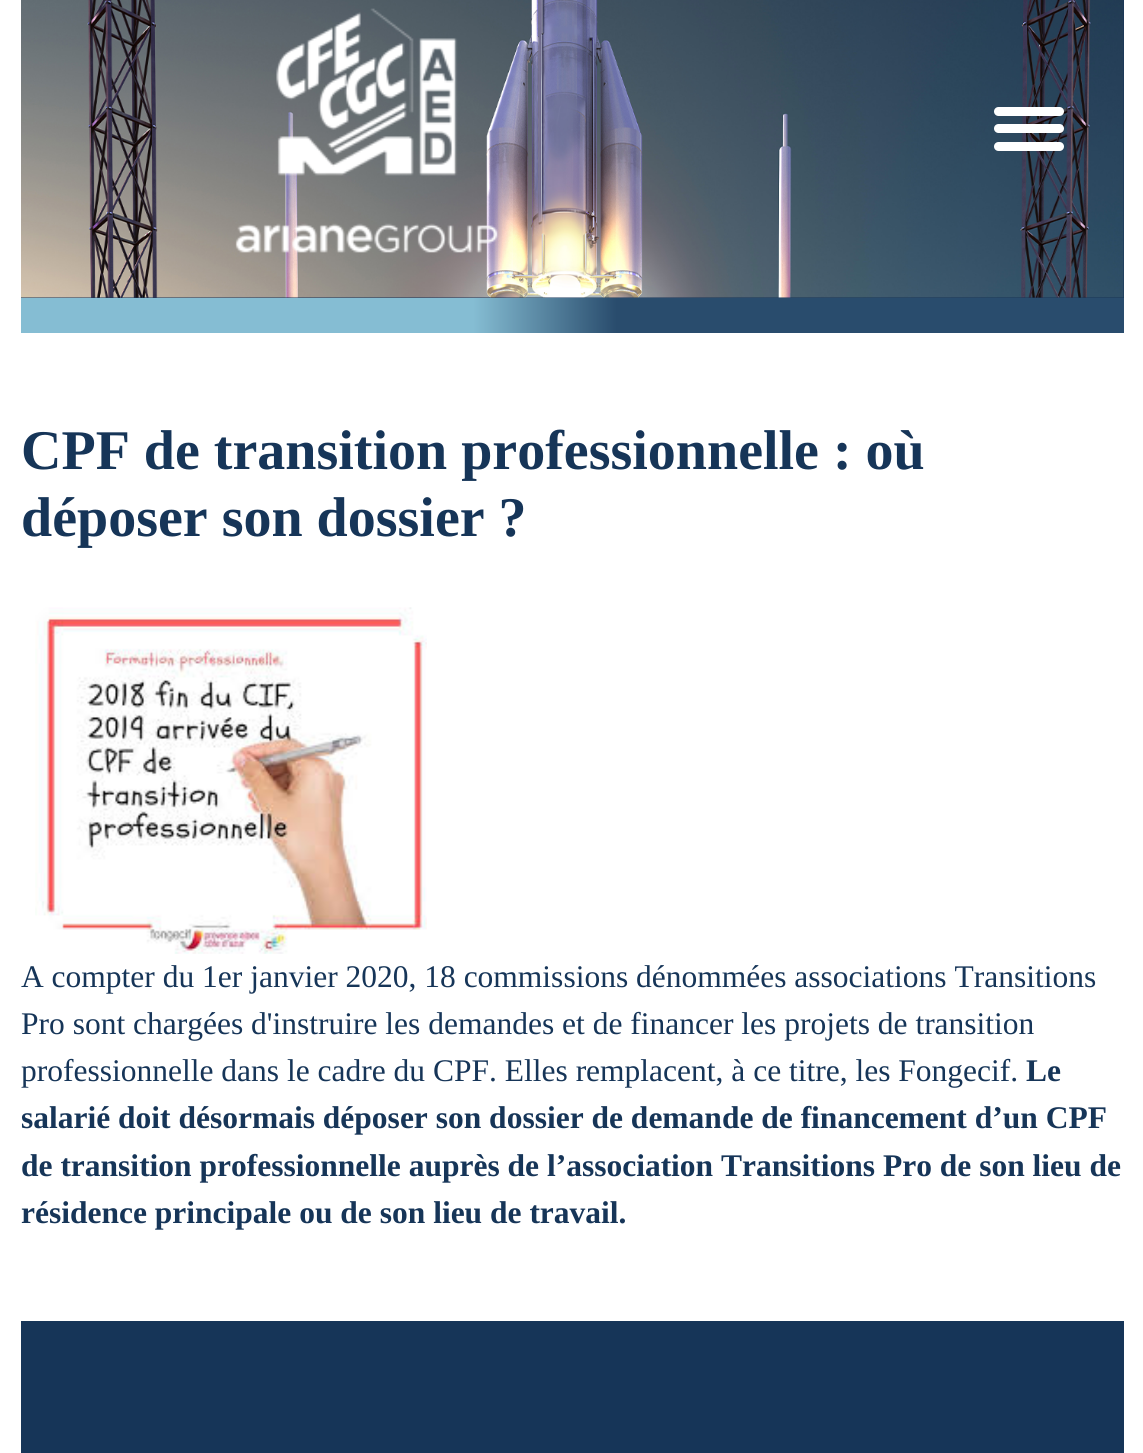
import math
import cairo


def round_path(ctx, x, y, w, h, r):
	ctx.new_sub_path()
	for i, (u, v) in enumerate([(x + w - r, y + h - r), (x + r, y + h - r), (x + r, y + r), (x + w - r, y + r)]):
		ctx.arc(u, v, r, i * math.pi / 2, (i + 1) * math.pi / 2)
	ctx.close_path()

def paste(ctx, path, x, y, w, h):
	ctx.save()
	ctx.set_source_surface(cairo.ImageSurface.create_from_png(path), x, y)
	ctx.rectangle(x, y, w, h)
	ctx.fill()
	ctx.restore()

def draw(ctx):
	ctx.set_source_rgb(1, 1, 1)
	ctx.paint()
	ctx.set_source_rgb(0.086, 0.208, 0.345)
	ctx.rectangle(21, 0, 1103, 298)
	ctx.fill()
	paste(ctx, 'media/1.png', 21, 0, 1103, 298)
	paste(ctx, 'media/2.png', 235, 8, 263, 245)
	gradient = cairo.LinearGradient(21, 315, 1124, 315)
	gradient.add_color_stop_rgba(0.41, 0.522, 0.741, 0.827, 1)
	gradient.add_color_stop_rgba(0.54, 0.161, 0.298, 0.427, 1)
	ctx.set_source(gradient)
	ctx.rectangle(21, 298, 1103, 35)
	ctx.fill()
	ctx.set_source_rgb(1, 1, 1)
	round_path(ctx, 994, 107, 70, 9, 4.5)
	ctx.fill()
	round_path(ctx, 994, 124, 70, 9, 4.5)
	ctx.fill()
	round_path(ctx, 994, 142, 70, 9, 4.5)
	ctx.fill()
	ctx.select_font_face('Liberation Serif', cairo.FONT_SLANT_NORMAL, cairo.FONT_WEIGHT_BOLD)
	ctx.set_font_size(56)
	ctx.set_source_rgb(0.086, 0.208, 0.345)
	ctx.move_to(21, 469)
	ctx.show_text('CPF de transition professionnelle : où')
	ctx.move_to(21, 536)
	ctx.show_text('déposer son dossier ?')
	paste(ctx, 'media/3.png', 35, 607, 392, 347)
	ctx.select_font_face('Liberation Serif')
	ctx.set_font_size(31.5)
	for x, y, s in [
		(21, 987, 'A compter du 1er janvier 2020, 18 commissions dénommées associations Transitions'),
		(21, 1034, 'Pro sont chargées d\'instruire les demandes et de financer les projets de transition'),
		(21, 1081, 'professionnelle dans le cadre du CPF. Elles remplacent, à ce titre, les Fongecif.'),
	]:
		ctx.move_to(x, y)
		ctx.show_text(s)
	ctx.select_font_face('Liberation Serif', cairo.FONT_SLANT_NORMAL, cairo.FONT_WEIGHT_BOLD)
	for x, y, s in [
		(1026, 1081, 'Le'),
		(21, 1128, 'salarié doit désormais déposer son dossier de demande de financement d’un CPF'),
		(21, 1176, 'de transition professionnelle auprès de l’association Transitions Pro de son lieu de'),
		(21, 1223, 'résidence principale ou de son lieu de travail.'),
	]:
		ctx.move_to(x, y)
		ctx.show_text(s)
	ctx.rectangle(21, 1321, 1103, 132)
	ctx.fill()


surface = cairo.ImageSurface(cairo.FORMAT_RGB24, 1143, 1453)
ctx = cairo.Context(surface)
options = cairo.FontOptions()
options.set_hint_metrics(cairo.HINT_METRICS_OFF)
options.set_hint_style(cairo.HINT_STYLE_NONE)
ctx.set_font_options(options)
ctx.set_miter_limit(4)
draw(ctx)
surface.write_to_png('image.png')
